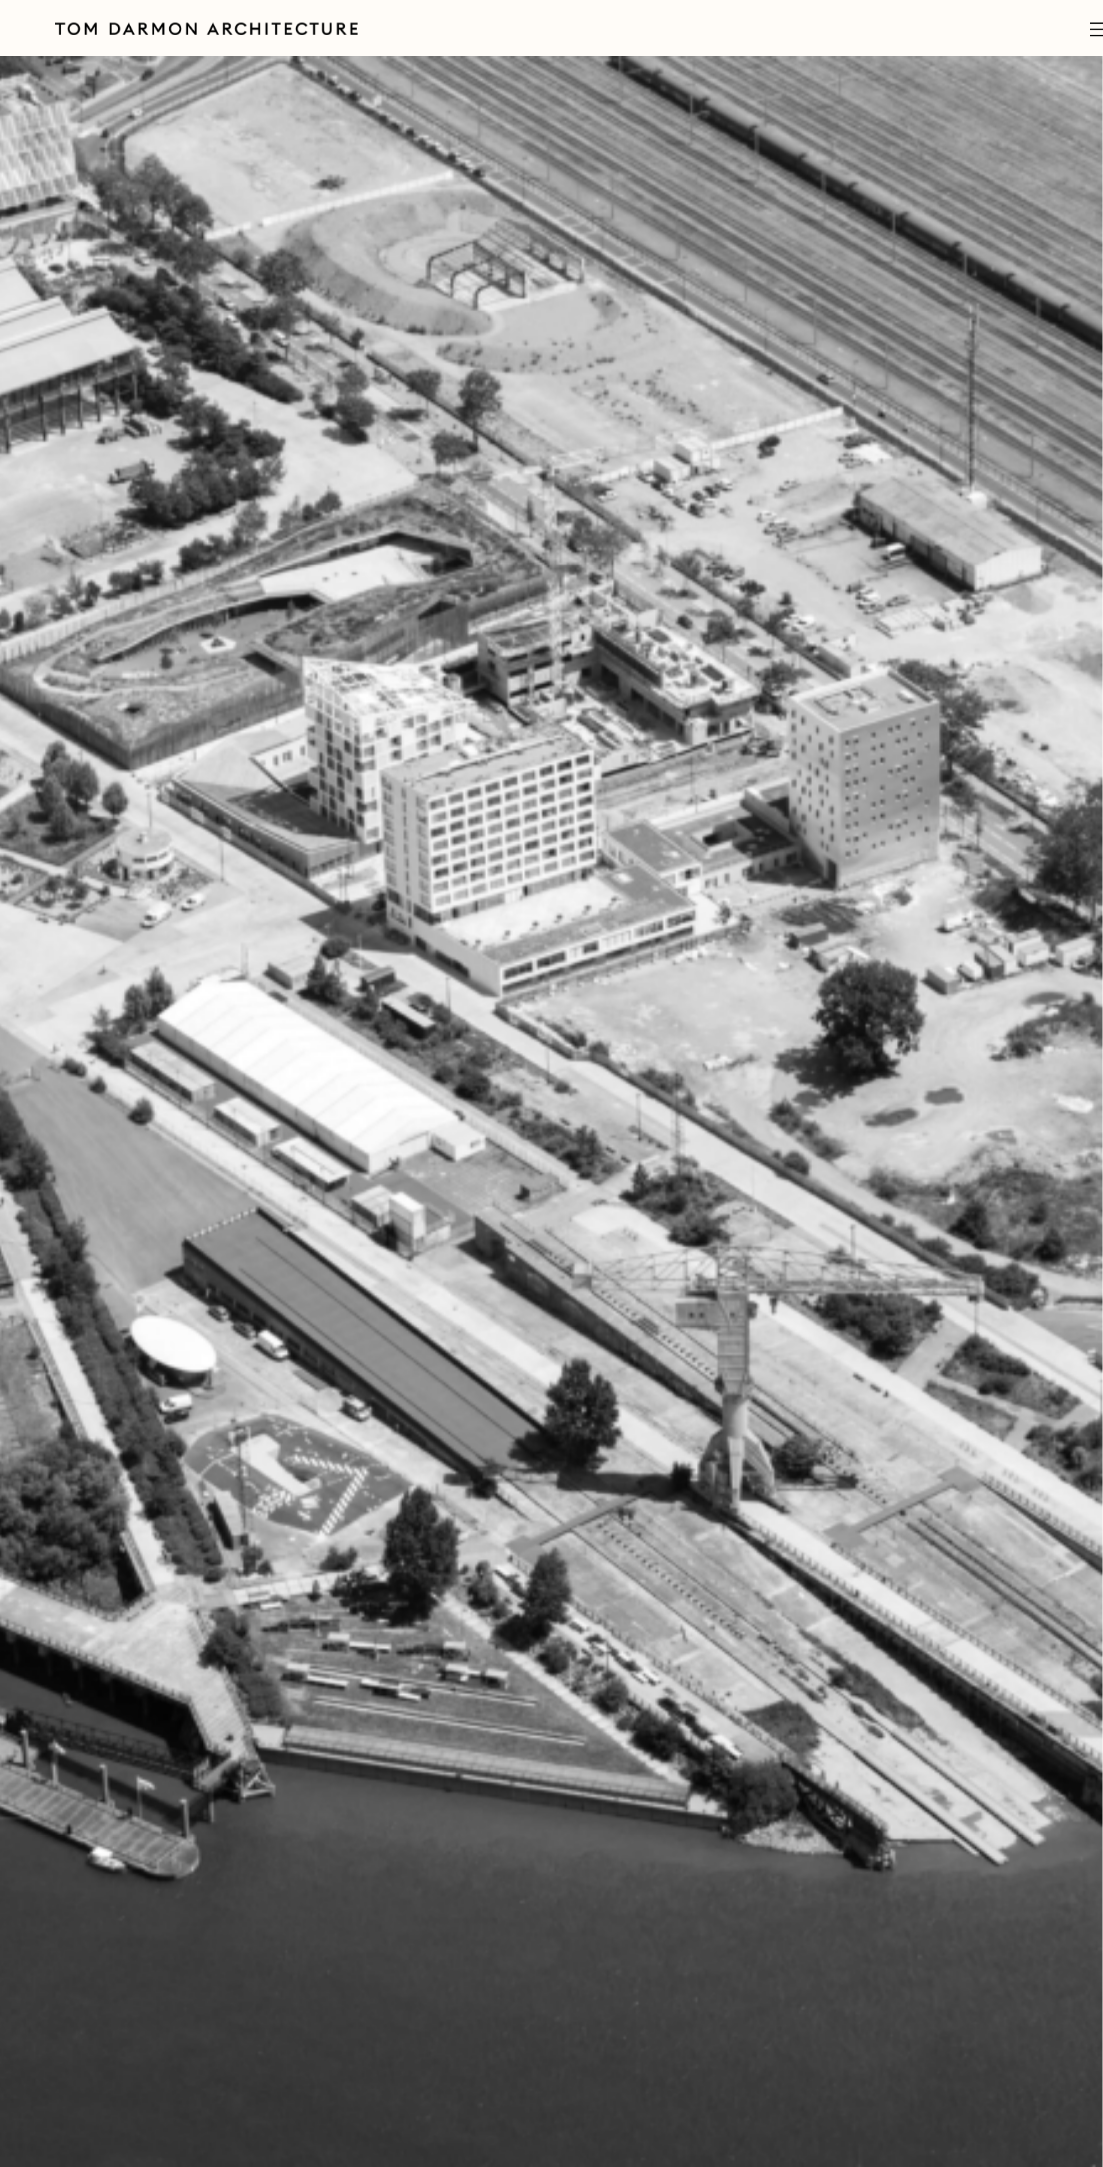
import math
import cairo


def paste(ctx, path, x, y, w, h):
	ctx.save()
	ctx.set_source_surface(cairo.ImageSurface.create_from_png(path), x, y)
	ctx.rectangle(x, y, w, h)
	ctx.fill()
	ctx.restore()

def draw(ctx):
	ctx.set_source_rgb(1, 0.988, 0.969)
	ctx.paint()
	paste(ctx, 'media/1.png', 55, 22, 303, 13)
	paste(ctx, 'media/2.png', 1090, 22, 13, 15)
	paste(ctx, 'media/3.png', 0, 56, 1103, 2111)


surface = cairo.ImageSurface(cairo.FORMAT_RGB24, 1103, 2167)
ctx = cairo.Context(surface)
options = cairo.FontOptions()
options.set_hint_metrics(cairo.HINT_METRICS_OFF)
options.set_hint_style(cairo.HINT_STYLE_NONE)
ctx.set_font_options(options)
ctx.set_miter_limit(4)
draw(ctx)
surface.write_to_png('image.png')
